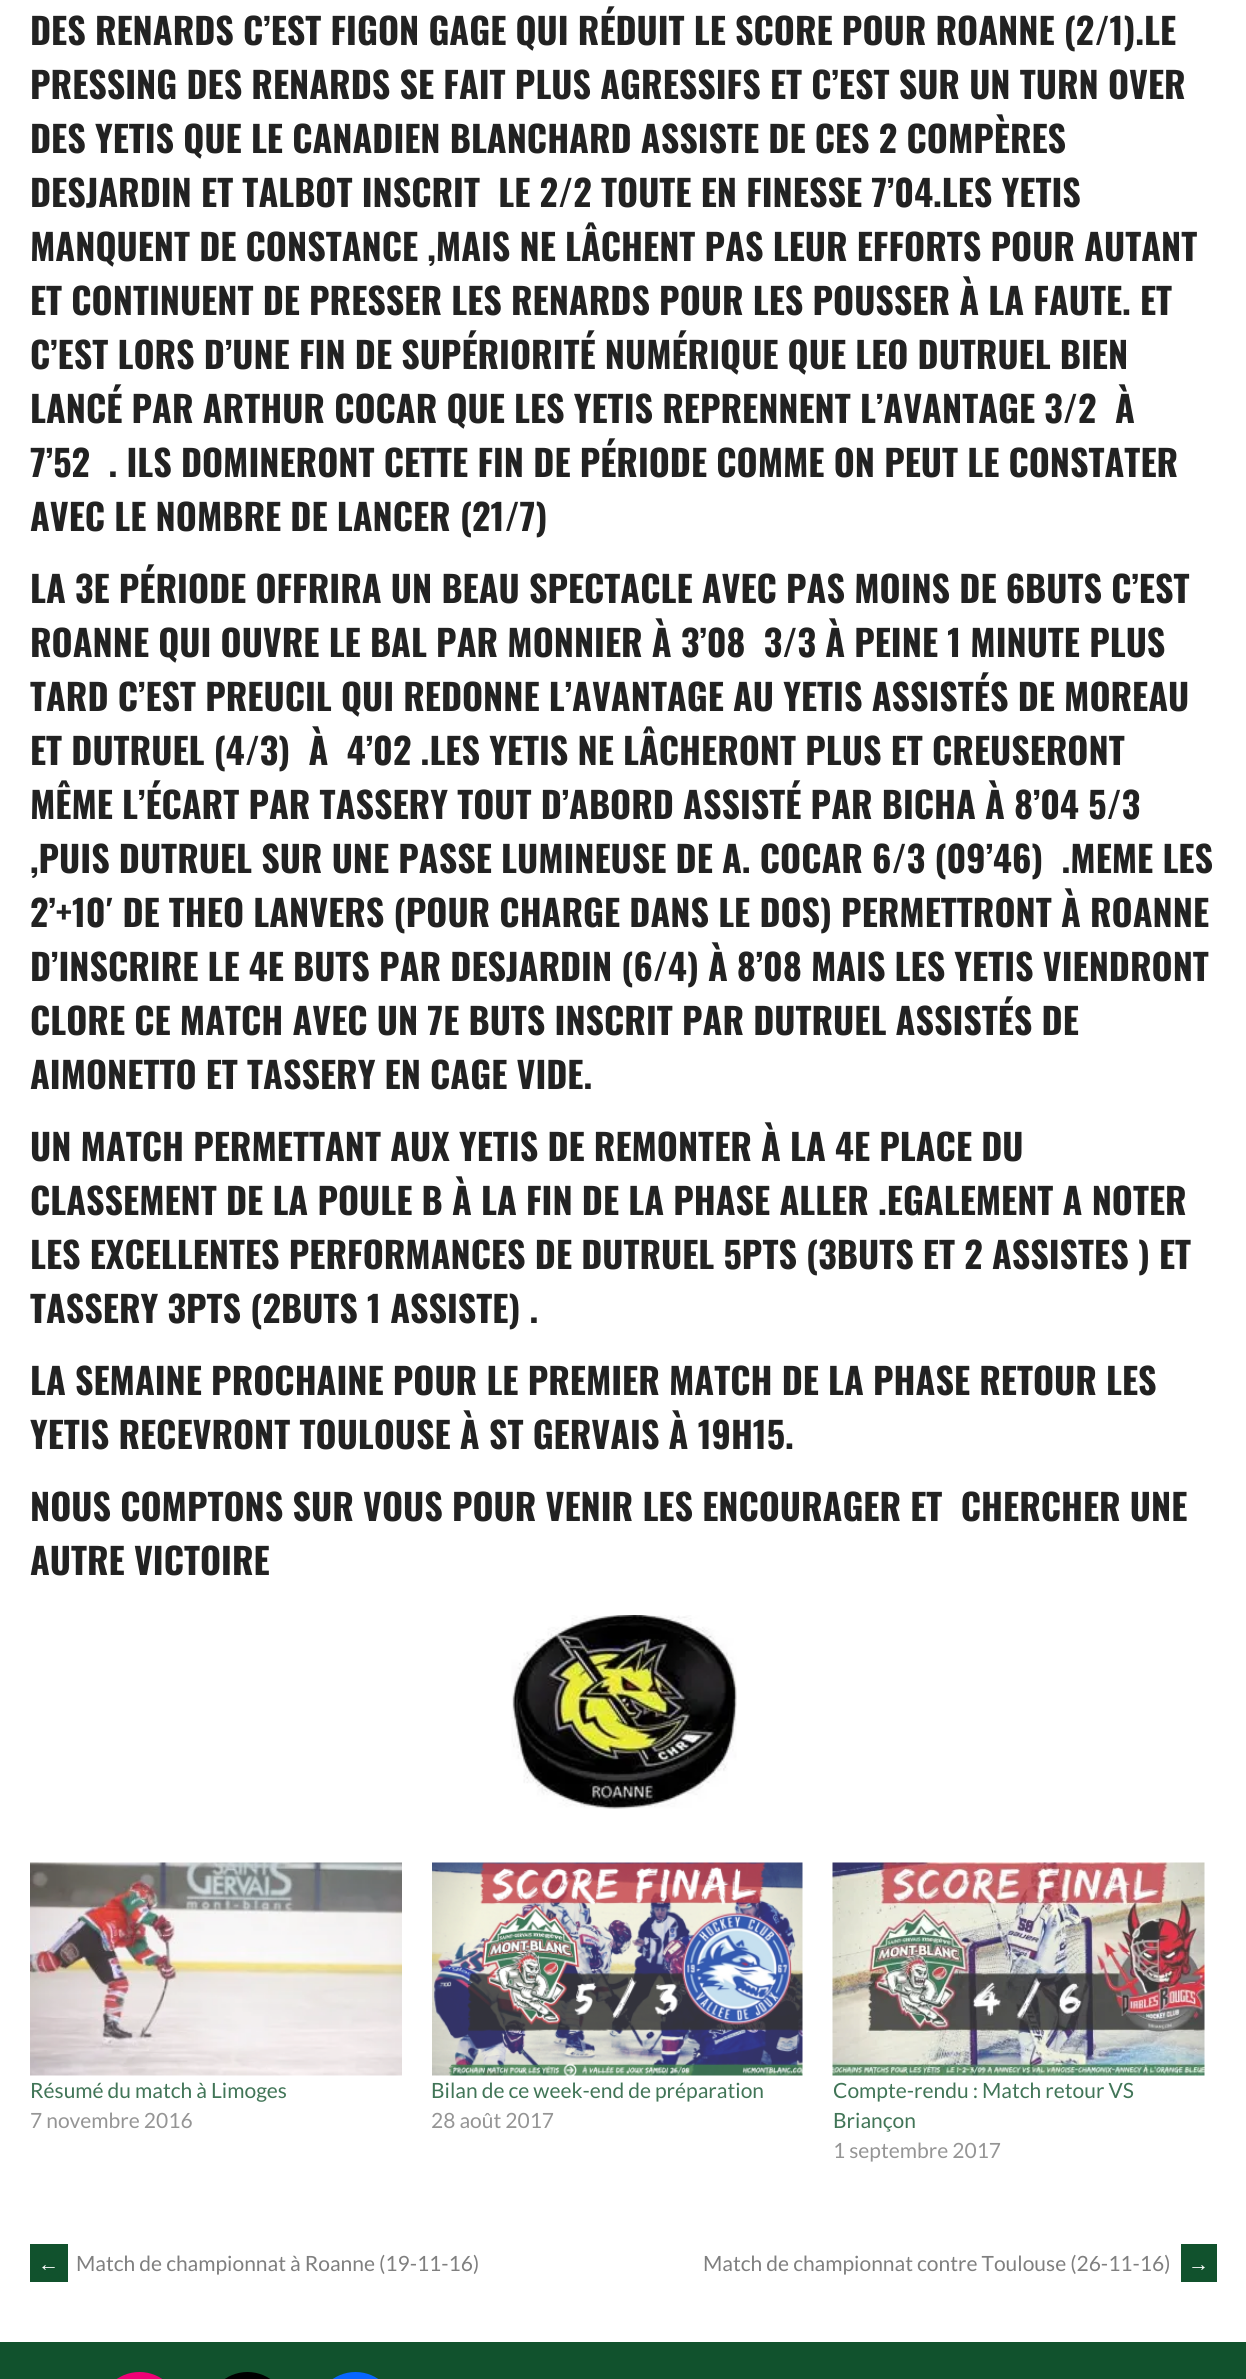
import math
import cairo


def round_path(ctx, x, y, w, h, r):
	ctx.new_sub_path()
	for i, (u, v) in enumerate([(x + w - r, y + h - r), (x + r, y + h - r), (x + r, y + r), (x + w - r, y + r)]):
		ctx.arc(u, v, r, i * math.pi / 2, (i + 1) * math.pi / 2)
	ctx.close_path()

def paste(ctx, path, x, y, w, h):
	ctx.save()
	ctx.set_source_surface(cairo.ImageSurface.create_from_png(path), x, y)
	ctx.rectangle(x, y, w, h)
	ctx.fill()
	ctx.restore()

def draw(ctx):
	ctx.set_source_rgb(1, 1, 1)
	ctx.paint()
	ctx.select_font_face('Oswald', cairo.FONT_SLANT_NORMAL, cairo.FONT_WEIGHT_BOLD)
	ctx.set_font_size(36)
	ctx.set_source_rgb(0.133, 0.133, 0.133)
	for x, y, s in [
		(30, 45, 'DES RENARDS C’EST FIGON GAGE QUI RÉDUIT LE SCORE POUR ROANNE (2/1).LE'),
		(30, 99, 'PRESSING DES RENARDS SE FAIT PLUS AGRESSIFS ET C’EST SUR UN TURN OVER'),
		(30, 153, 'DES YETIS QUE LE CANADIEN BLANCHARD ASSISTE DE CES 2 COMPÈRES'),
		(30, 207, 'DESJARDIN ET TALBOT INSCRIT  LE 2/2 TOUTE EN FINESSE 7’04.LES YETIS'),
		(30, 261, 'MANQUENT DE CONSTANCE ,MAIS NE LÂCHENT PAS LEUR EFFORTS POUR AUTANT'),
		(30, 315, 'ET CONTINUENT DE PRESSER LES RENARDS POUR LES POUSSER À LA FAUTE. ET'),
		(30, 369, 'C’EST LORS D’UNE FIN DE SUPÉRIORITÉ NUMÉRIQUE QUE LEO DUTRUEL BIEN'),
		(30, 423, 'LANCÉ PAR ARTHUR COCAR QUE LES YETIS REPRENNENT L’AVANTAGE 3/2  À'),
		(30, 477, '7’52  . ILS DOMINERONT CETTE FIN DE PÉRIODE COMME ON PEUT LE CONSTATER'),
		(30, 531, 'AVEC LE NOMBRE DE LANCER (21/7)'),
		(30, 603, 'LA 3E PÉRIODE OFFRIRA UN BEAU SPECTACLE AVEC PAS MOINS DE 6BUTS C’EST'),
		(30, 657, 'ROANNE QUI OUVRE LE BAL PAR MONNIER À 3’08  3/3 À PEINE 1 MINUTE PLUS'),
		(30, 711, 'TARD C’EST PREUCIL QUI REDONNE L’AVANTAGE AU YETIS ASSISTÉS DE MOREAU'),
		(30, 765, 'ET DUTRUEL (4/3)  À  4’02 .LES YETIS NE LÂCHERONT PLUS ET CREUSERONT'),
		(30, 819, 'MÊME L’ÉCART PAR TASSERY TOUT D’ABORD ASSISTÉ PAR BICHA À 8’04 5/3'),
		(30, 873, ',PUIS DUTRUEL SUR UNE PASSE LUMINEUSE DE A. COCAR 6/3 (09’46)  .MEME LES'),
		(30, 927, '2’+10′ DE THEO LANVERS (POUR CHARGE DANS LE DOS) PERMETTRONT À ROANNE'),
		(30, 981, 'D’INSCRIRE LE 4E BUTS PAR DESJARDIN (6/4) À 8’08 MAIS LES YETIS VIENDRONT'),
		(30, 1035, 'CLORE CE MATCH AVEC UN 7E BUTS INSCRIT PAR DUTRUEL ASSISTÉS DE'),
		(30, 1089, 'AIMONETTO ET TASSERY EN CAGE VIDE.'),
		(30, 1161, 'UN MATCH PERMETTANT AUX YETIS DE REMONTER À LA 4E PLACE DU'),
		(30, 1215, 'CLASSEMENT DE LA POULE B À LA FIN DE LA PHASE ALLER .EGALEMENT A NOTER'),
		(30, 1269, 'LES EXCELLENTES PERFORMANCES DE DUTRUEL 5PTS (3BUTS ET 2 ASSISTES ) ET'),
		(30, 1323, 'TASSERY 3PTS (2BUTS 1 ASSISTE) .'),
		(30, 1395, 'LA SEMAINE PROCHAINE POUR LE PREMIER MATCH DE LA PHASE RETOUR LES'),
		(30, 1449, 'YETIS RECEVRONT TOULOUSE À ST GERVAIS À 19H15.'),
		(30, 1521, 'NOUS COMPTONS SUR VOUS POUR VENIR LES ENCOURAGER ET  CHERCHER UNE'),
		(30, 1575, 'AUTRE VICTOIRE'),
	]:
		ctx.move_to(x, y)
		ctx.show_text(s)
	paste(ctx, 'media/1.png', 511, 1615, 226, 194)
	paste(ctx, 'media/2.png', 30, 1862, 372, 214)
	ctx.select_font_face('Lato')
	ctx.set_font_size(21)
	ctx.set_source_rgb(0.255, 0.459, 0.341)
	ctx.move_to(30, 2098)
	ctx.show_text('Résumé du match à Limoges')
	ctx.set_source_rgb(0.584, 0.584, 0.584)
	ctx.move_to(30, 2128)
	ctx.show_text('7 novembre 2016')
	paste(ctx, 'media/3.png', 432, 1862, 371, 214)
	ctx.set_source_rgb(0.255, 0.459, 0.341)
	ctx.move_to(431, 2098)
	ctx.show_text('Bilan de ce week-end de préparation')
	ctx.set_source_rgb(0.584, 0.584, 0.584)
	ctx.move_to(431, 2128)
	ctx.show_text('28 août 2017')
	paste(ctx, 'media/4.png', 832, 1862, 373, 214)
	ctx.set_source_rgb(0.255, 0.459, 0.341)
	ctx.move_to(833, 2098)
	ctx.show_text('Compte-rendu : Match retour VS')
	ctx.move_to(833, 2128)
	ctx.show_text('Briançon')
	ctx.set_source_rgb(0.584, 0.584, 0.584)
	ctx.move_to(833, 2158)
	ctx.show_text('1 septembre 2017')
	ctx.set_source_rgb(0.067, 0.322, 0.176)
	ctx.rectangle(30, 2244, 38, 38)
	ctx.fill()
	ctx.select_font_face('Liberation Sans')
	ctx.set_source_rgb(1, 1, 1)
	ctx.move_to(38, 2271)
	ctx.show_text('←')
	ctx.select_font_face('Lato')
	ctx.set_source_rgb(0.498, 0.498, 0.498)
	ctx.move_to(76, 2271)
	ctx.show_text('Match de championnat à Roanne (19-11-16)')
	ctx.move_to(703, 2271)
	ctx.show_text('Match de championnat contre Toulouse (26-11-16)')
	ctx.set_source_rgb(0.067, 0.322, 0.176)
	ctx.rectangle(1181, 2244, 36, 38)
	ctx.fill()
	ctx.select_font_face('Liberation Sans')
	ctx.set_source_rgb(1, 1, 1)
	ctx.move_to(1188, 2271)
	ctx.show_text('→')
	ctx.set_source_rgb(0.067, 0.322, 0.176)
	ctx.rectangle(0, 2342, 1246, 37)
	ctx.fill()
	ctx.set_source_rgb(0.941, 0, 0.459)
	round_path(ctx, 99, 2372, 81, 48, 40.5)
	ctx.fill()
	ctx.set_source_rgb(0, 0, 0)
	round_path(ctx, 207, 2372, 81, 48, 40.5)
	ctx.fill()
	ctx.set_source_rgb(0.031, 0.4, 1)
	round_path(ctx, 315, 2372, 81, 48, 40.5)
	ctx.fill()


surface = cairo.ImageSurface(cairo.FORMAT_RGB24, 1246, 2379)
ctx = cairo.Context(surface)
options = cairo.FontOptions()
options.set_hint_metrics(cairo.HINT_METRICS_OFF)
options.set_hint_style(cairo.HINT_STYLE_NONE)
ctx.set_font_options(options)
ctx.set_miter_limit(4)
draw(ctx)
surface.write_to_png('image.png')
